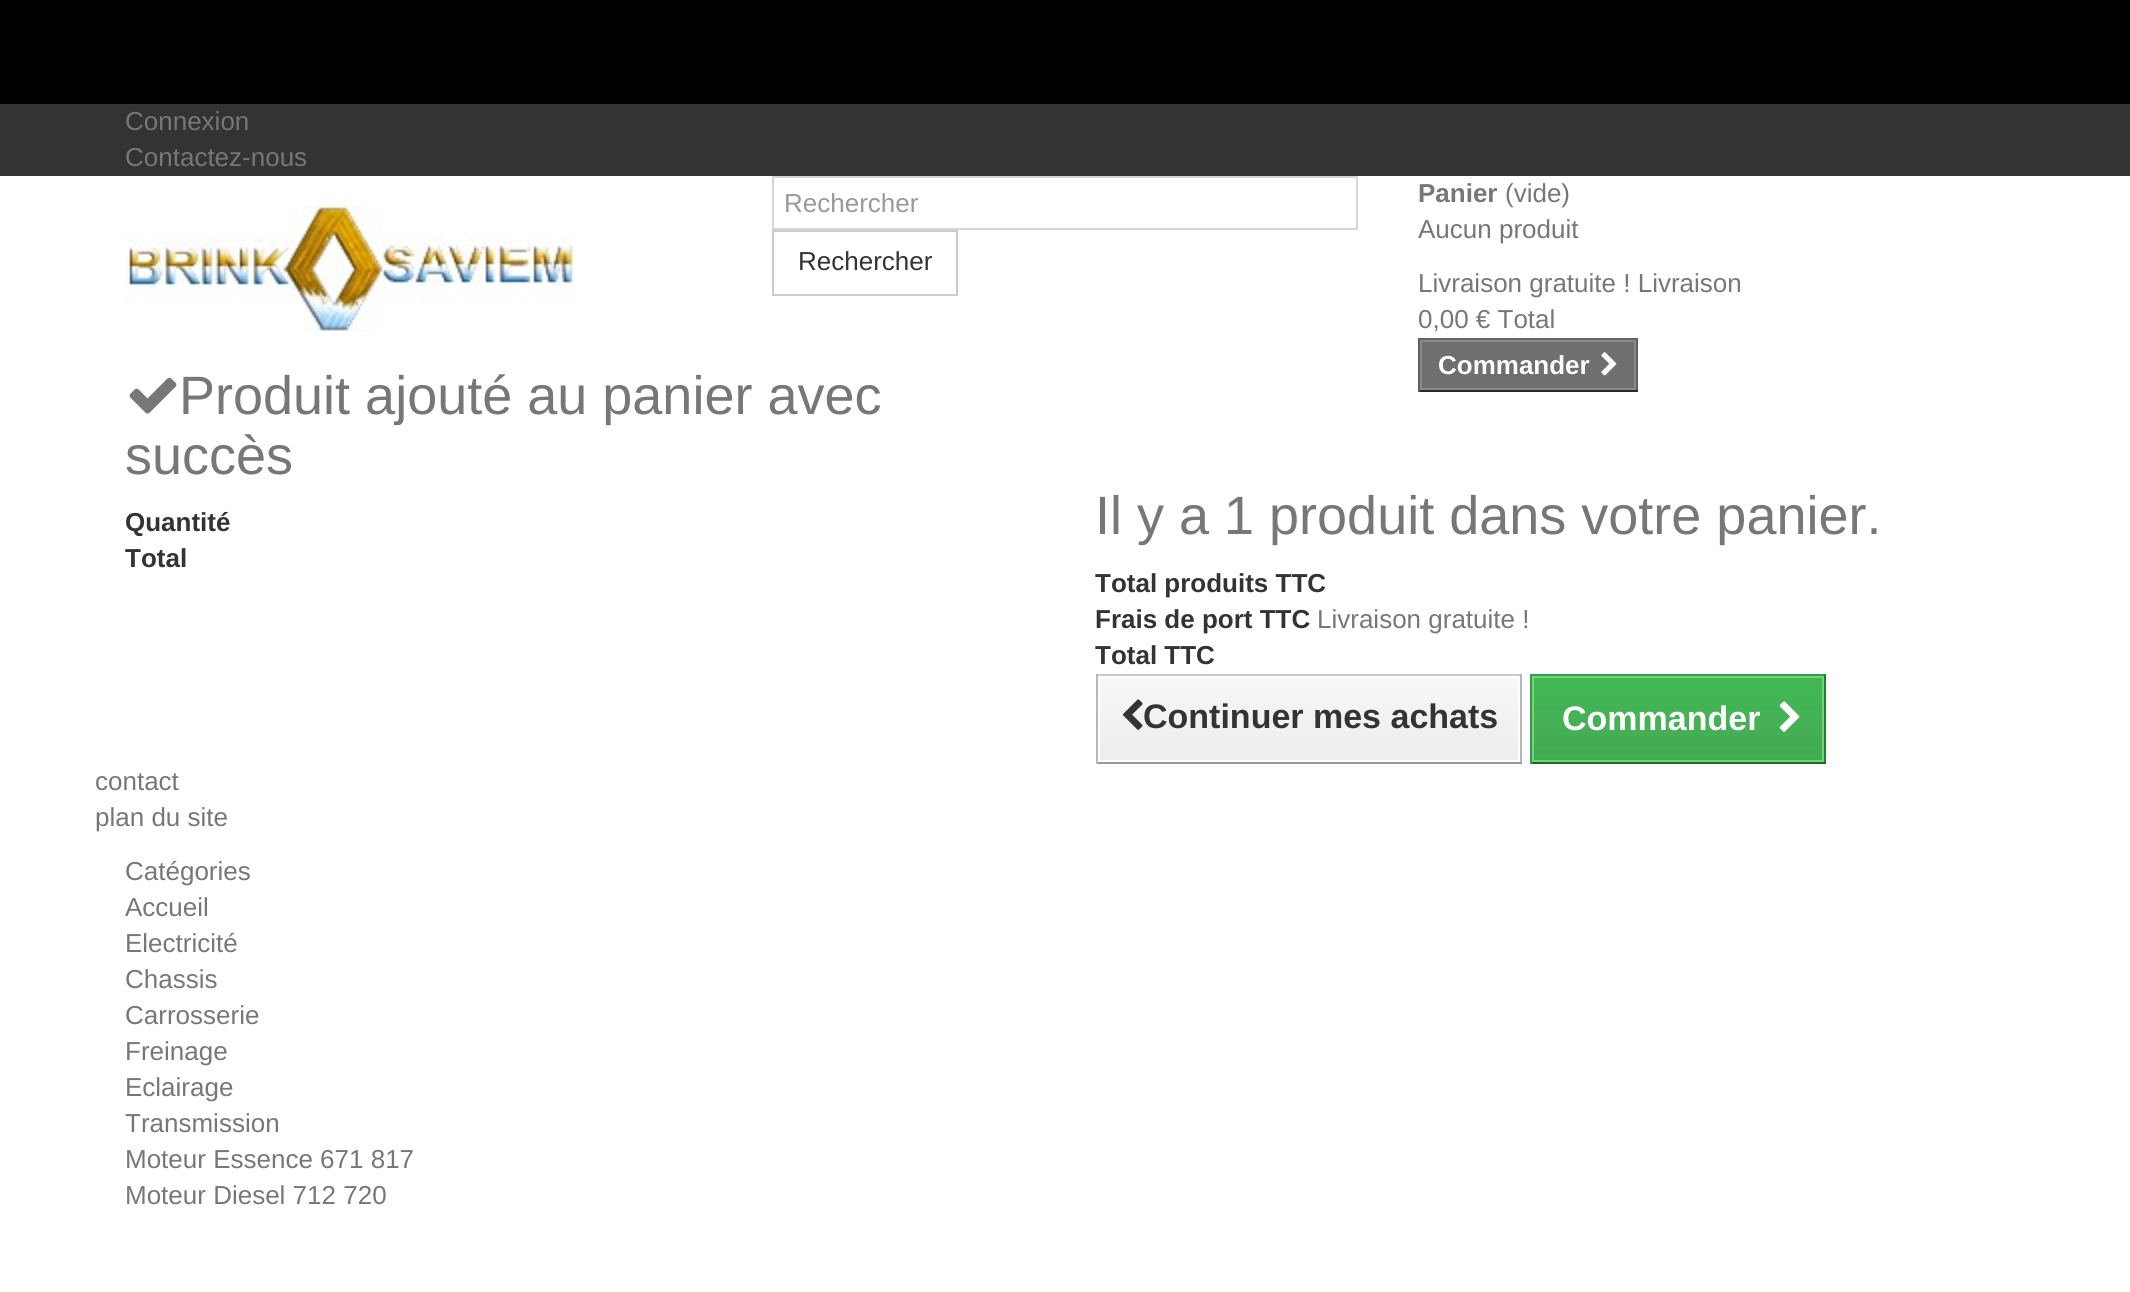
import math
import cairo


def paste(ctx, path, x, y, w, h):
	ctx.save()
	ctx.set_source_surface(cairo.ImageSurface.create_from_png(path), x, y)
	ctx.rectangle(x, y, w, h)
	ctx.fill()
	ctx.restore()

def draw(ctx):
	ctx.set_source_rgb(1, 1, 1)
	ctx.paint()
	ctx.set_source_rgb(0, 0, 0)
	ctx.rectangle(0, 0, 2130, 104)
	ctx.fill()
	ctx.set_source_rgb(0.2, 0.2, 0.2)
	ctx.rectangle(0, 104, 2130, 72)
	ctx.fill()
	ctx.select_font_face('Liberation Sans')
	ctx.set_font_size(26)
	ctx.set_source_rgb(0.467, 0.467, 0.467)
	ctx.move_to(125, 130)
	ctx.show_text('Connexion')
	ctx.move_to(125, 166)
	ctx.show_text('Contactez-nous')
	paste(ctx, 'media/1.png', 126, 206, 448, 126)
	ctx.rectangle(773, 177, 584, 52)
	ctx.set_source_rgb(0.839, 0.831, 0.831)
	ctx.stroke()
	ctx.set_source_rgb(0.6, 0.6, 0.6)
	ctx.move_to(784, 212)
	ctx.show_text('Rechercher')
	ctx.rectangle(773, 231, 184, 64)
	ctx.set_source_rgb(0.8, 0.8, 0.8)
	ctx.stroke()
	ctx.set_source_rgb(0.2, 0.2, 0.2)
	ctx.move_to(798, 270)
	ctx.show_text('Rechercher')
	ctx.select_font_face('Liberation Sans', cairo.FONT_SLANT_NORMAL, cairo.FONT_WEIGHT_BOLD)
	ctx.set_source_rgb(0.467, 0.467, 0.467)
	ctx.move_to(1418, 202)
	ctx.show_text('Panier')
	ctx.select_font_face('Liberation Sans')
	for x, y, s in [
		(1505, 202, '(vide)'),
		(1418, 238, 'Aucun produit'),
		(1418, 292, 'Livraison gratuite ! Livraison'),
		(1418, 328, '0,00 € Total'),
	]:
		ctx.move_to(x, y)
		ctx.show_text(s)
	ctx.set_source_rgb(0.4, 0.4, 0.4)
	ctx.rectangle(1418, 338, 220, 2)
	ctx.fill()
	ctx.set_source_rgb(0.373, 0.373, 0.373)
	ctx.rectangle(1636, 338, 2, 54)
	ctx.fill()
	ctx.set_source_rgb(0.161, 0.161, 0.161)
	ctx.rectangle(1418, 390, 220, 2)
	ctx.fill()
	ctx.set_source_rgb(0.373, 0.373, 0.373)
	ctx.rectangle(1418, 338, 2, 54)
	ctx.fill()
	ctx.set_source_rgb(0.435, 0.435, 0.435)
	ctx.rectangle(1421, 341, 214, 48)
	ctx.fill_preserve()
	ctx.set_source_rgb(0.545, 0.541, 0.541)
	ctx.stroke()
	ctx.select_font_face('Liberation Sans', cairo.FONT_SLANT_NORMAL, cairo.FONT_WEIGHT_BOLD)
	ctx.set_source_rgb(1, 1, 1)
	ctx.move_to(1438, 374)
	ctx.show_text('Commander')
	paste(ctx, 'media/2.png', 1601, 352, 16, 24)
	paste(ctx, 'media/3.png', 129, 377, 48, 37)
	ctx.select_font_face('Liberation Sans')
	ctx.set_font_size(54)
	ctx.set_source_rgb(0.467, 0.467, 0.467)
	ctx.move_to(179, 414)
	ctx.show_text('Produit ajouté au panier avec')
	ctx.move_to(125, 474)
	ctx.show_text('succès')
	ctx.select_font_face('Liberation Sans', cairo.FONT_SLANT_NORMAL, cairo.FONT_WEIGHT_BOLD)
	ctx.set_font_size(26)
	ctx.set_source_rgb(0.2, 0.2, 0.2)
	ctx.move_to(125, 531)
	ctx.show_text('Quantité')
	ctx.move_to(125, 567)
	ctx.show_text('Total')
	ctx.select_font_face('Liberation Sans')
	ctx.set_font_size(54)
	ctx.set_source_rgb(0.467, 0.467, 0.467)
	ctx.move_to(1095, 534)
	ctx.show_text('Il y a 1 produit dans votre panier.')
	ctx.select_font_face('Liberation Sans', cairo.FONT_SLANT_NORMAL, cairo.FONT_WEIGHT_BOLD)
	ctx.set_font_size(26)
	ctx.set_source_rgb(0.2, 0.2, 0.2)
	ctx.move_to(1095, 592)
	ctx.show_text('Total produits TTC')
	ctx.move_to(1095, 628)
	ctx.show_text('Frais de port TTC')
	ctx.select_font_face('Liberation Sans')
	ctx.set_source_rgb(0.467, 0.467, 0.467)
	ctx.move_to(1317, 628)
	ctx.show_text('Livraison gratuite !')
	ctx.select_font_face('Liberation Sans', cairo.FONT_SLANT_NORMAL, cairo.FONT_WEIGHT_BOLD)
	ctx.set_source_rgb(0.2, 0.2, 0.2)
	ctx.move_to(1095, 664)
	ctx.show_text('Total TTC')
	ctx.set_source_rgb(0.792, 0.792, 0.792)
	ctx.rectangle(1096, 674, 426, 2)
	ctx.fill()
	ctx.set_source_rgb(0.718, 0.718, 0.718)
	ctx.rectangle(1520, 674, 2, 90)
	ctx.fill()
	ctx.set_source_rgb(0.604, 0.604, 0.604)
	ctx.rectangle(1096, 762, 426, 2)
	ctx.fill()
	ctx.set_source_rgb(0.718, 0.718, 0.718)
	ctx.rectangle(1096, 674, 2, 90)
	ctx.fill()
	gradient = cairo.LinearGradient(1309, 678, 1309, 760)
	gradient.add_color_stop_rgba(0, 0.969, 0.969, 0.969, 1)
	gradient.add_color_stop_rgba(1, 0.929, 0.929, 0.929, 1)
	ctx.set_source(gradient)
	ctx.rectangle(1100, 678, 418, 82)
	ctx.fill()
	paste(ctx, 'media/4.png', 1122, 699, 21, 31)
	ctx.set_font_size(34)
	ctx.set_source_rgb(0.2, 0.2, 0.2)
	ctx.move_to(1143, 728)
	ctx.show_text('Continuer mes achats')
	gradient = cairo.LinearGradient(1678, 676, 1678, 762)
	gradient.add_color_stop_rgba(0, 0.263, 0.718, 0.329, 1)
	gradient.add_color_stop_rgba(0.02, 0.255, 0.718, 0.341, 1)
	gradient.add_color_stop_rgba(0.04, 0.255, 0.722, 0.329, 1)
	gradient.add_color_stop_rgba(0.06, 0.263, 0.718, 0.337, 1)
	gradient.add_color_stop_rgba(0.38, 0.255, 0.702, 0.329, 1)
	gradient.add_color_stop_rgba(0.4, 0.267, 0.702, 0.333, 1)
	gradient.add_color_stop_rgba(0.66, 0.271, 0.686, 0.333, 1)
	gradient.add_color_stop_rgba(0.74, 0.255, 0.682, 0.325, 1)
	gradient.add_color_stop_rgba(0.91, 0.259, 0.675, 0.322, 1)
	gradient.add_color_stop_rgba(0.94, 0.255, 0.682, 0.333, 1)
	gradient.add_color_stop_rgba(0.96, 0.263, 0.671, 0.329, 1)
	gradient.add_color_stop_rgba(1, 0.259, 0.675, 0.322, 1)
	ctx.set_source(gradient)
	ctx.rectangle(1534, 678, 288, 82)
	ctx.fill()
	ctx.set_source_rgb(0.224, 0.604, 0.286)
	ctx.rectangle(1530, 674, 296, 2)
	ctx.fill()
	ctx.set_source_rgb(0.141, 0.498, 0.196)
	ctx.rectangle(1824, 674, 2, 90)
	ctx.fill()
	ctx.set_source_rgb(0.102, 0.427, 0.153)
	ctx.rectangle(1530, 762, 296, 2)
	ctx.fill()
	ctx.set_source_rgb(0.224, 0.604, 0.286)
	ctx.rectangle(1530, 674, 2, 90)
	ctx.fill()
	ctx.rectangle(1533, 677, 290, 84)
	ctx.set_source_rgb(0.455, 0.835, 0.471)
	ctx.stroke()
	ctx.set_source_rgb(1, 1, 1)
	ctx.move_to(1562, 730)
	ctx.show_text('Commander')
	paste(ctx, 'media/5.png', 1779, 701, 21, 31)
	ctx.select_font_face('Liberation Sans')
	ctx.set_font_size(26)
	ctx.set_source_rgb(0.467, 0.467, 0.467)
	for x, y, s in [
		(95, 790, 'contact'),
		(95, 826, 'plan du site'),
		(125, 880, 'Catégories'),
		(125, 916, 'Accueil'),
		(125, 952, 'Electricité'),
		(125, 988, 'Chassis'),
		(125, 1024, 'Carrosserie'),
		(125, 1060, 'Freinage'),
		(125, 1096, 'Eclairage'),
		(125, 1132, 'Transmission'),
		(125, 1168, 'Moteur Essence 671 817'),
		(125, 1204, 'Moteur Diesel 712 720'),
	]:
		ctx.move_to(x, y)
		ctx.show_text(s)


surface = cairo.ImageSurface(cairo.FORMAT_RGB24, 2130, 1292)
ctx = cairo.Context(surface)
options = cairo.FontOptions()
options.set_hint_metrics(cairo.HINT_METRICS_OFF)
options.set_hint_style(cairo.HINT_STYLE_NONE)
ctx.set_font_options(options)
ctx.set_miter_limit(4)
draw(ctx)
surface.write_to_png('image.png')
